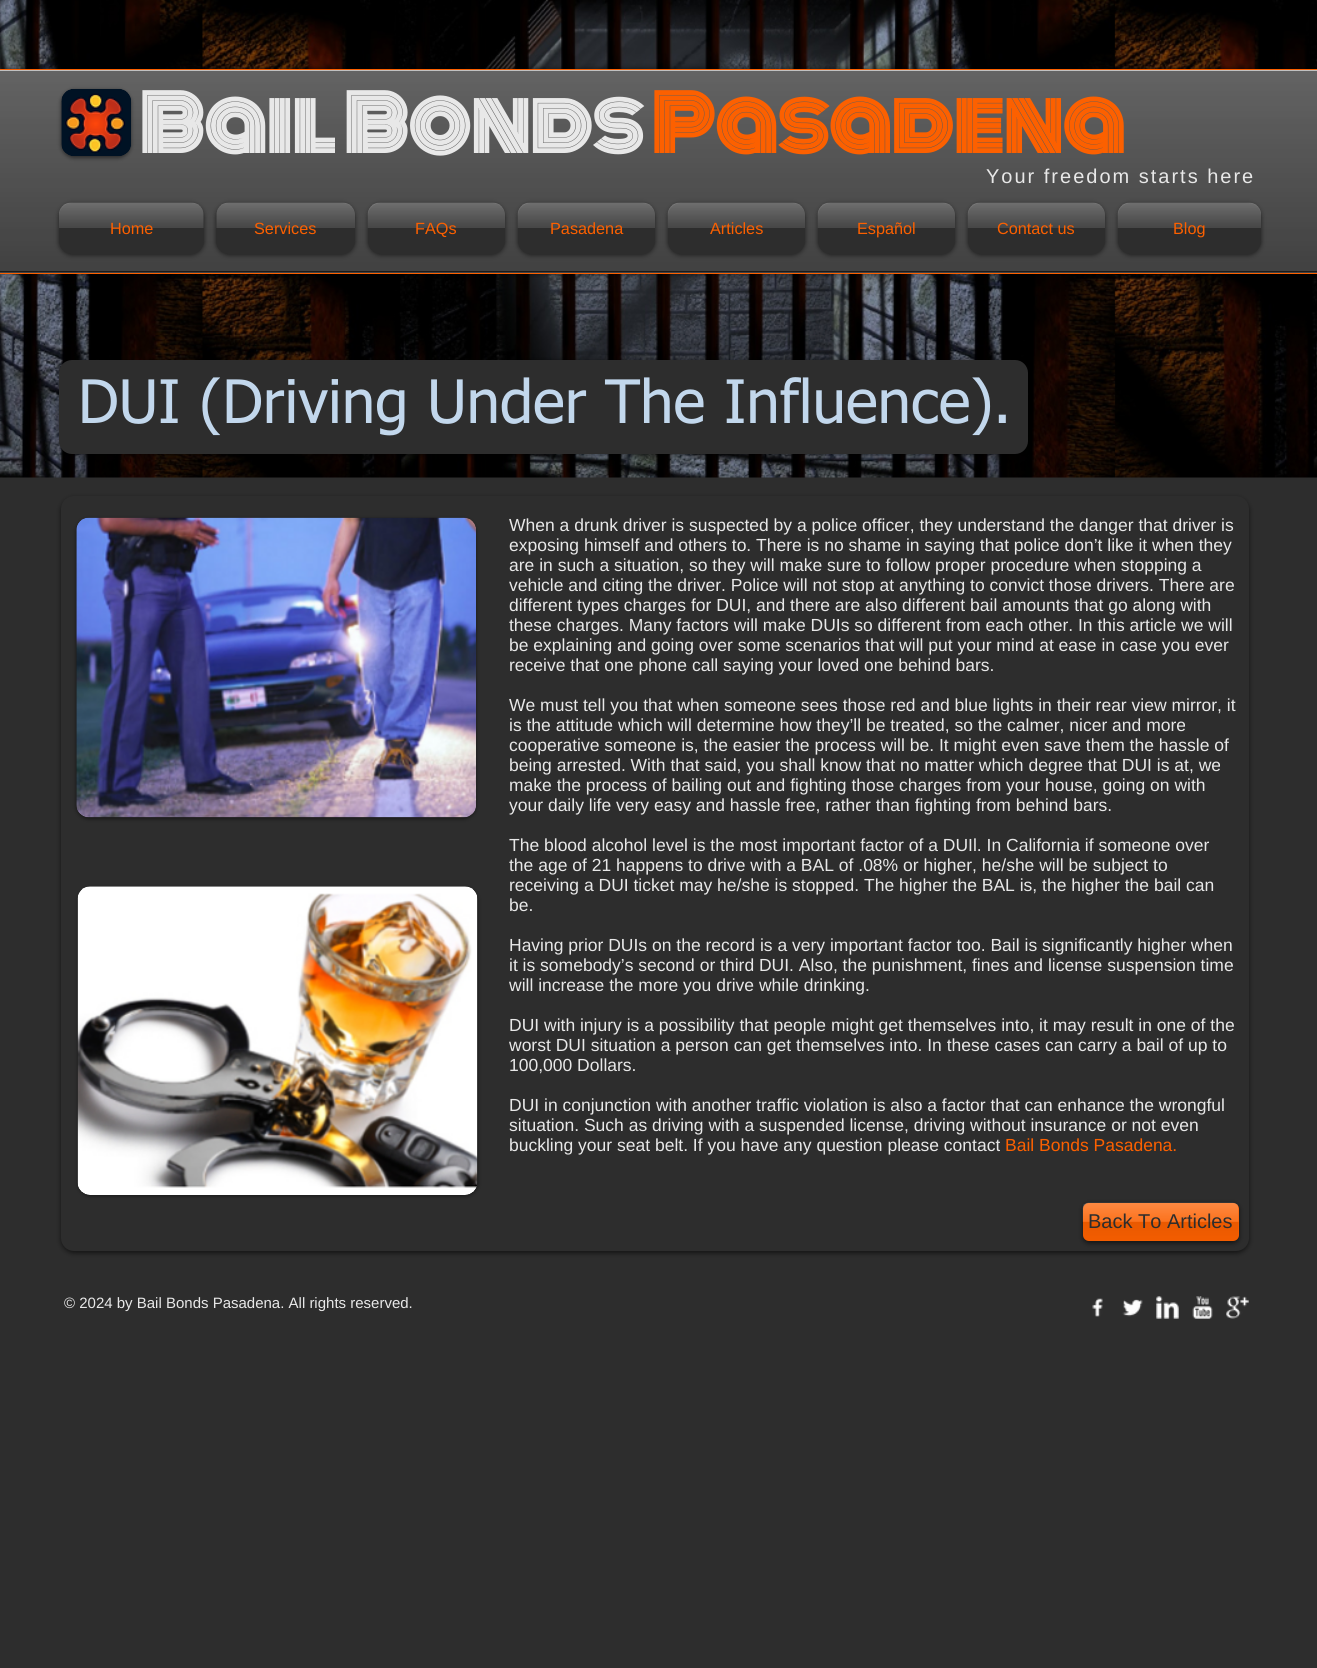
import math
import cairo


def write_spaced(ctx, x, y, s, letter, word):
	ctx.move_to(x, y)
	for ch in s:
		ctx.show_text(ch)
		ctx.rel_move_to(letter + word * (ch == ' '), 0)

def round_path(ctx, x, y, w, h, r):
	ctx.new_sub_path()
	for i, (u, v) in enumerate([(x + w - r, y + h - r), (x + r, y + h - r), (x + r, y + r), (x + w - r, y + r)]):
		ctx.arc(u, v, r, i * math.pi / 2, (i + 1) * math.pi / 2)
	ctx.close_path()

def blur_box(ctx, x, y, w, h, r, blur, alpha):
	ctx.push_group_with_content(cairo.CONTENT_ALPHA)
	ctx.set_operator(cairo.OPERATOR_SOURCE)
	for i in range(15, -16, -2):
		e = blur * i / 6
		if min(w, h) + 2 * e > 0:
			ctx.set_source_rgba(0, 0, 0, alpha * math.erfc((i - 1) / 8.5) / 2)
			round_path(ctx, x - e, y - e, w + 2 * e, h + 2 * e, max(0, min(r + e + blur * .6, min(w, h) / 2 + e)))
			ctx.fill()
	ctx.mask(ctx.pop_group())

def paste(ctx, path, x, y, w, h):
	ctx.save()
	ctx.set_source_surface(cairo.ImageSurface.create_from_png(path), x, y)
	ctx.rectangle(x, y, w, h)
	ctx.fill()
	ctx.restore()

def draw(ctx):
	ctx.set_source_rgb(0.176, 0.176, 0.176)
	ctx.paint()
	paste(ctx, 'media/1.png', 0, 0, 1317, 478)
	ctx.set_source_rgb(0, 0, 0)
	blur_box(ctx, 0, 69, 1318, 205, 0, 3, 0.6)
	ctx.set_source_rgb(0.176, 0.176, 0.176)
	ctx.rectangle(0, 71, 1317, 202)
	ctx.fill()
	paste(ctx, 'media/2.png', 0, 71, 1317, 202)
	ctx.set_source_rgb(0.102, 0.102, 0.102)
	ctx.rectangle(0, 271, 1317, 1)
	ctx.fill()
	ctx.set_source_rgb(0.757, 0.757, 0.757)
	ctx.rectangle(0, 70, 1317, 1)
	ctx.fill()
	ctx.set_source_rgb(0.988, 0.376, 0)
	ctx.rectangle(0, 69, 1317, 1)
	ctx.rectangle(0, 273, 1317, 1)
	ctx.fill()
	ctx.set_source_rgb(0, 0, 0)
	blur_box(ctx, 61, 90, 70, 68, 13, 2, 0.5)
	paste(ctx, 'media/3.png', 61, 89, 70, 67)
	ctx.select_font_face('Monoton', cairo.FONT_SLANT_NORMAL, cairo.FONT_WEIGHT_BOLD)
	ctx.set_font_size(75)
	ctx.set_source_rgb(0.91, 0.91, 0.91)
	ctx.move_to(139, 153)
	ctx.show_text('Bail Bonds')
	ctx.set_source_rgb(0.988, 0.376, 0)
	ctx.move_to(651, 153)
	ctx.show_text('Pasadena')
	ctx.select_font_face('Liberation Sans')
	ctx.set_font_size(20)
	ctx.set_source_rgb(0.91, 0.91, 0.91)
	write_spaced(ctx, 986, 183, 'Your freedom starts here', 2, 0)
	ctx.set_source_rgb(0, 0, 0)
	blur_box(ctx, 59, 204, 145, 51, 13, 2.5, 0.6)
	ctx.set_source_rgb(0.176, 0.176, 0.176)
	round_path(ctx, 59, 203, 145, 51, 13)
	ctx.fill()
	paste(ctx, 'media/4.png', 59, 202, 145, 26)
	ctx.set_font_size(16.25)
	ctx.set_source_rgb(0.988, 0.376, 0)
	ctx.move_to(110, 234)
	ctx.show_text('Home')
	ctx.set_source_rgb(0, 0, 0)
	blur_box(ctx, 216, 204, 139, 51, 13, 2.5, 0.6)
	ctx.set_source_rgb(0.176, 0.176, 0.176)
	round_path(ctx, 216, 203, 139, 51, 13)
	ctx.fill()
	paste(ctx, 'media/5.png', 216, 202, 139, 26)
	ctx.set_source_rgb(0.988, 0.376, 0)
	ctx.move_to(254, 234)
	ctx.show_text('Services')
	ctx.set_source_rgb(0, 0, 0)
	blur_box(ctx, 368, 204, 137, 51, 13, 2.5, 0.6)
	ctx.set_source_rgb(0.176, 0.176, 0.176)
	round_path(ctx, 368, 203, 137, 51, 13)
	ctx.fill()
	paste(ctx, 'media/6.png', 367, 202, 138, 26)
	ctx.set_source_rgb(0.988, 0.376, 0)
	ctx.move_to(415, 234)
	ctx.show_text('FAQs')
	ctx.set_source_rgb(0, 0, 0)
	blur_box(ctx, 518, 204, 137, 51, 13, 2.5, 0.6)
	ctx.set_source_rgb(0.176, 0.176, 0.176)
	round_path(ctx, 518, 203, 137, 51, 13)
	ctx.fill()
	paste(ctx, 'media/6.png', 517, 202, 138, 26)
	ctx.set_source_rgb(0.988, 0.376, 0)
	ctx.move_to(550, 234)
	ctx.show_text('Pasadena')
	ctx.set_source_rgb(0, 0, 0)
	blur_box(ctx, 668, 204, 137, 51, 13, 2.5, 0.6)
	ctx.set_source_rgb(0.176, 0.176, 0.176)
	round_path(ctx, 668, 203, 137, 51, 13)
	ctx.fill()
	paste(ctx, 'media/6.png', 667, 202, 138, 26)
	ctx.set_source_rgb(0.988, 0.376, 0)
	ctx.move_to(710, 234)
	ctx.show_text('Articles')
	ctx.set_source_rgb(0, 0, 0)
	blur_box(ctx, 818, 204, 137, 51, 13, 2.5, 0.6)
	ctx.set_source_rgb(0.176, 0.176, 0.176)
	round_path(ctx, 818, 203, 137, 51, 13)
	ctx.fill()
	paste(ctx, 'media/6.png', 817, 202, 138, 26)
	ctx.set_source_rgb(0.988, 0.376, 0)
	ctx.move_to(857, 234)
	ctx.show_text('Español')
	ctx.set_source_rgb(0, 0, 0)
	blur_box(ctx, 968, 204, 137, 51, 13, 2.5, 0.6)
	ctx.set_source_rgb(0.176, 0.176, 0.176)
	round_path(ctx, 968, 203, 137, 51, 13)
	ctx.fill()
	paste(ctx, 'media/6.png', 967, 202, 138, 26)
	ctx.set_source_rgb(0.988, 0.376, 0)
	ctx.move_to(997, 234)
	ctx.show_text('Contact us')
	ctx.set_source_rgb(0, 0, 0)
	blur_box(ctx, 1118, 204, 143, 51, 13, 2.5, 0.6)
	ctx.set_source_rgb(0.176, 0.176, 0.176)
	round_path(ctx, 1118, 203, 143, 51, 13)
	ctx.fill()
	paste(ctx, 'media/7.png', 1117, 202, 144, 26)
	ctx.set_source_rgb(0.988, 0.376, 0)
	ctx.move_to(1173, 234)
	ctx.show_text('Blog')
	ctx.set_source_rgb(0, 0, 0)
	blur_box(ctx, 59, 361, 969, 94, 13, 2.5, 0.6)
	ctx.set_source_rgb(0.176, 0.176, 0.176)
	round_path(ctx, 59, 360, 969, 94, 13)
	ctx.fill()
	ctx.select_font_face('tahoma')
	ctx.set_font_size(60)
	ctx.set_source_rgb(0.761, 0.843, 0.922)
	ctx.move_to(78, 423)
	ctx.show_text('DUI (Driving Under The Influence).')
	ctx.set_source_rgb(0, 0, 0)
	blur_box(ctx, 61, 498, 1188, 755, 13, 2.5, 0.6)
	ctx.set_source_rgb(0.176, 0.176, 0.176)
	round_path(ctx, 61, 496, 1188, 755, 13)
	ctx.fill()
	ctx.set_source_rgb(0, 0, 0)
	blur_box(ctx, 78, 888, 400, 308, 13, 2, 0.5)
	paste(ctx, 'media/8.png', 77, 886, 401, 309)
	blur_box(ctx, 76, 519, 400, 300, 13, 2, 0.5)
	paste(ctx, 'media/9.png', 76, 517, 400, 301)
	ctx.select_font_face('Liberation Sans')
	ctx.set_font_size(17.5)
	ctx.set_source_rgb(0.91, 0.91, 0.91)
	for x, y, s in [
		(509, 531, 'When a drunk driver is suspected by a police officer, they understand the danger that driver is'),
		(509, 551, 'exposing himself and others to. There is no shame in saying that police don’t like it when they'),
		(509, 571, 'are in such a situation, so they will make sure to follow proper procedure when stopping a'),
		(509, 591, 'vehicle and citing the driver. Police will not stop at anything to convict those drivers. There are'),
		(509, 611, 'different types charges for DUI, and there are also different bail amounts that go along with'),
		(509, 631, 'these charges. Many factors will make DUIs so different from each other. In this article we will'),
		(509, 651, 'be explaining and going over some scenarios that will put your mind at ease in case you ever'),
		(509, 671, 'receive that one phone call saying your loved one behind bars.'),
		(509, 711, 'We must tell you that when someone sees those red and blue lights in their rear view mirror, it'),
		(509, 731, 'is the attitude which will determine how they’ll be treated, so the calmer, nicer and more'),
		(509, 751, 'cooperative someone is, the easier the process will be. It might even save them the hassle of'),
		(509, 771, 'being arrested. With that said, you shall know that no matter which degree that DUI is at, we'),
		(509, 791, 'make the process of bailing out and fighting those charges from your house, going on with'),
		(509, 811, 'your daily life very easy and hassle free, rather than fighting from behind bars.'),
		(509, 851, 'The blood alcohol level is the most important factor of a DUIl. In California if someone over'),
		(509, 871, 'the age of 21 happens to drive with a BAL of .08% or higher, he/she will be subject to'),
		(509, 891, 'receiving a DUI ticket may he/she is stopped. The higher the BAL is, the higher the bail can'),
		(509, 911, 'be.'),
		(509, 951, 'Having prior DUIs on the record is a very important factor too. Bail is significantly higher when'),
		(509, 971, 'it is somebody’s second or third DUI. Also, the punishment, fines and license suspension time'),
		(509, 991, 'will increase the more you drive while drinking.'),
		(509, 1031, 'DUI with injury is a possibility that people might get themselves into, it may result in one of the'),
		(509, 1051, 'worst DUI situation a person can get themselves into. In these cases can carry a bail of up to'),
		(509, 1071, '100,000 Dollars.'),
		(509, 1111, 'DUI in conjunction with another traffic violation is also a factor that can enhance the wrongful'),
		(509, 1131, 'situation. Such as driving with a suspended license, driving without insurance or not even'),
		(509, 1151, 'buckling your seat belt. If you have any question please contact'),
	]:
		ctx.move_to(x, y)
		ctx.show_text(s)
	ctx.set_source_rgb(0.988, 0.376, 0)
	ctx.move_to(1005, 1151)
	ctx.show_text('Bail Bonds Pasadena.')
	ctx.set_source_rgb(0, 0, 0)
	blur_box(ctx, 1083, 1204, 156, 39, 6, 2.5, 0.6)
	ctx.set_source_rgb(0.988, 0.376, 0)
	round_path(ctx, 1083, 1203, 156, 38, 6)
	ctx.fill()
	paste(ctx, 'media/10.png', 1082, 1202, 157, 39)
	ctx.set_font_size(20)
	ctx.set_source_rgb(0.176, 0.176, 0.176)
	ctx.move_to(1088, 1228)
	ctx.show_text('Back To Articles')
	ctx.set_font_size(15)
	ctx.set_source_rgb(0.91, 0.91, 0.91)
	ctx.move_to(64, 1308)
	ctx.show_text('© 2024 by Bail Bonds Pasadena. All rights reserved.')
	paste(ctx, 'media/11.png', 1092, 1298, 11, 19)
	paste(ctx, 'media/12.png', 1122, 1299, 21, 18)
	paste(ctx, 'media/13.png', 1156, 1296, 23, 23)
	paste(ctx, 'media/14.png', 1192, 1296, 21, 23)
	paste(ctx, 'media/15.png', 1226, 1296, 23, 23)


surface = cairo.ImageSurface(cairo.FORMAT_RGB24, 1317, 1668)
ctx = cairo.Context(surface)
options = cairo.FontOptions()
options.set_hint_metrics(cairo.HINT_METRICS_OFF)
options.set_hint_style(cairo.HINT_STYLE_NONE)
ctx.set_font_options(options)
ctx.set_miter_limit(4)
draw(ctx)
surface.write_to_png('image.png')
